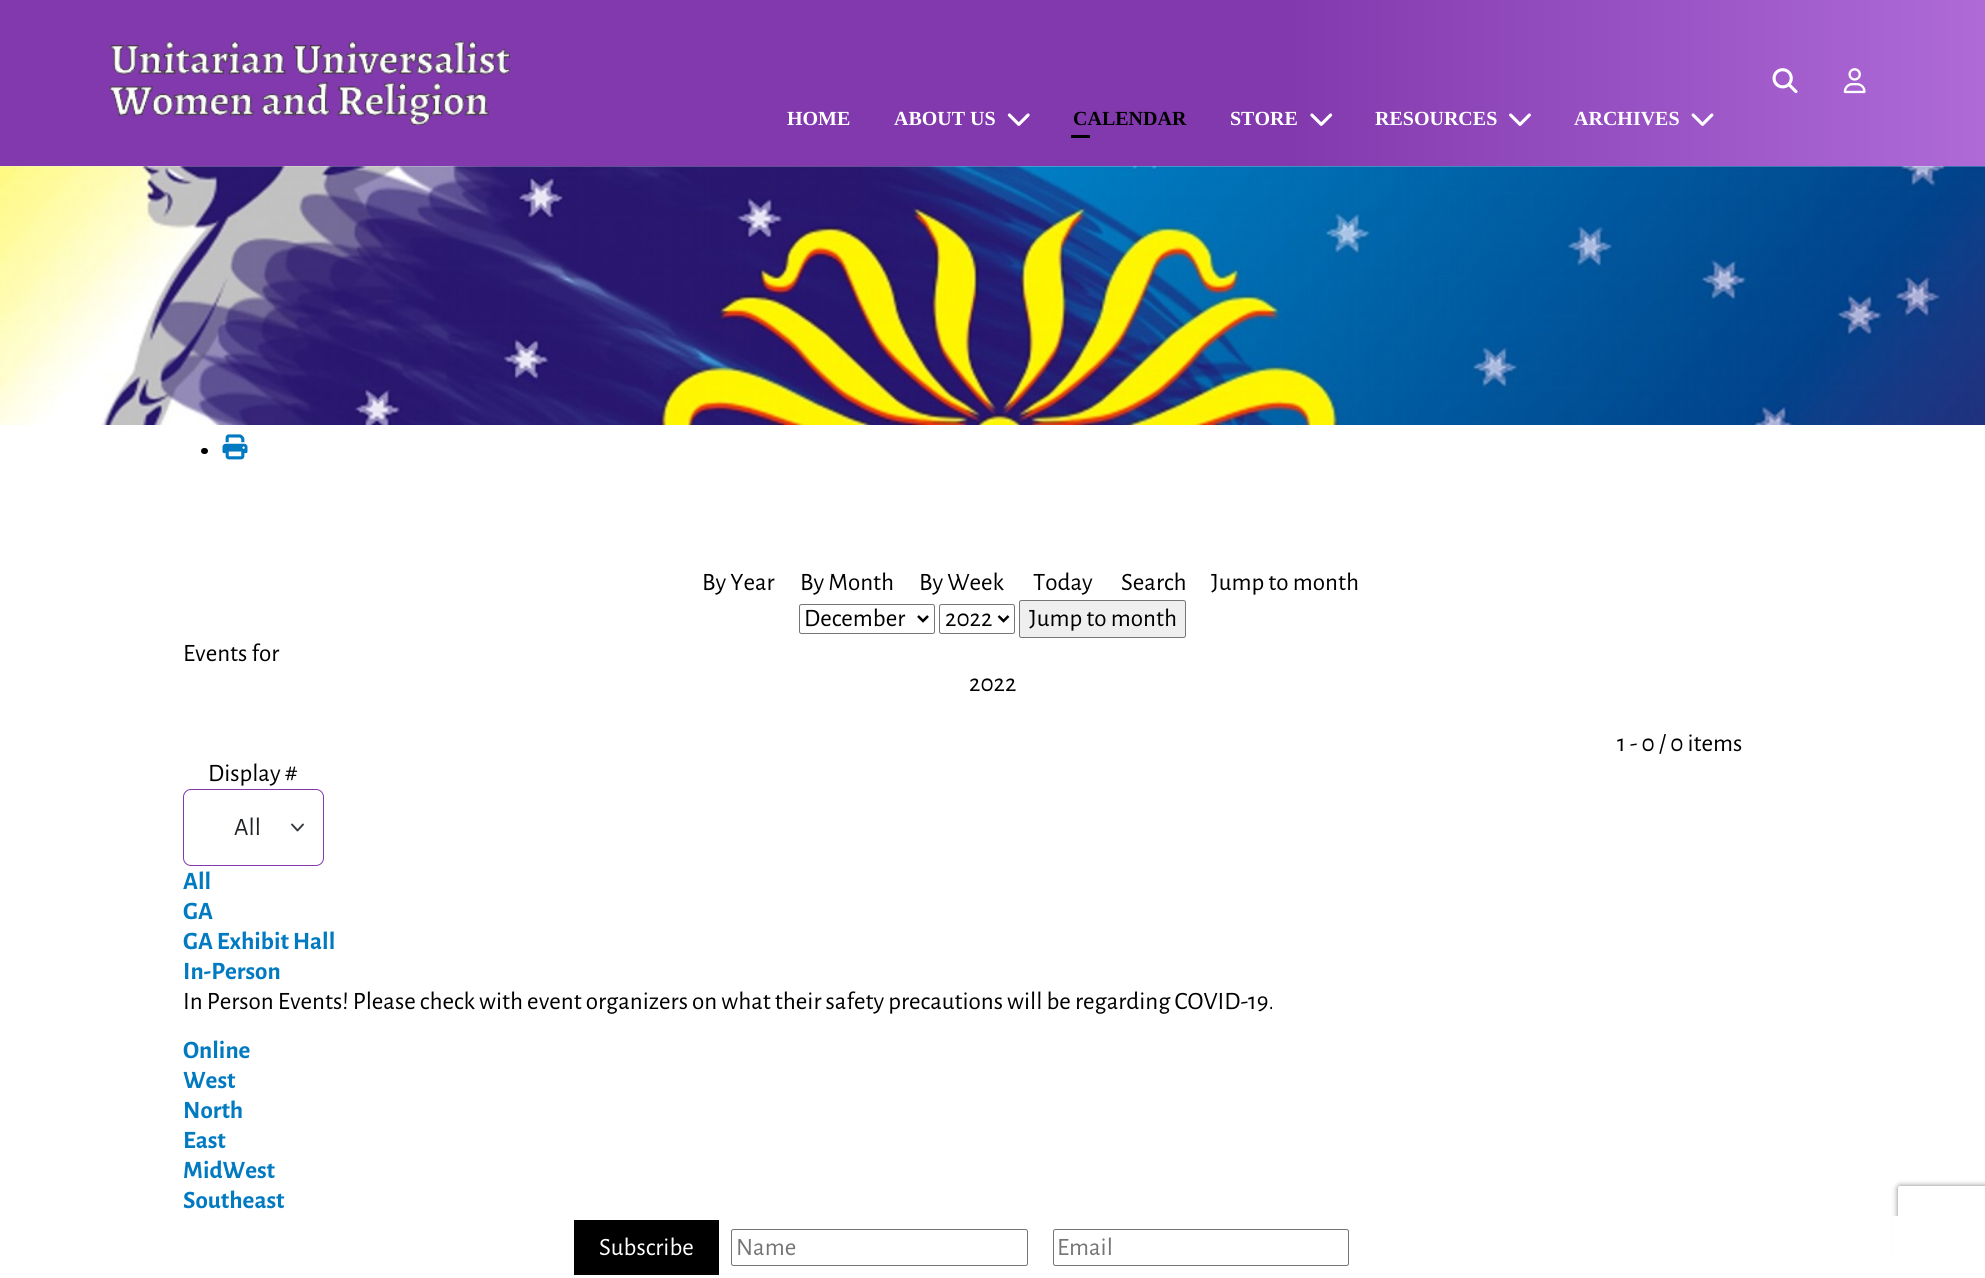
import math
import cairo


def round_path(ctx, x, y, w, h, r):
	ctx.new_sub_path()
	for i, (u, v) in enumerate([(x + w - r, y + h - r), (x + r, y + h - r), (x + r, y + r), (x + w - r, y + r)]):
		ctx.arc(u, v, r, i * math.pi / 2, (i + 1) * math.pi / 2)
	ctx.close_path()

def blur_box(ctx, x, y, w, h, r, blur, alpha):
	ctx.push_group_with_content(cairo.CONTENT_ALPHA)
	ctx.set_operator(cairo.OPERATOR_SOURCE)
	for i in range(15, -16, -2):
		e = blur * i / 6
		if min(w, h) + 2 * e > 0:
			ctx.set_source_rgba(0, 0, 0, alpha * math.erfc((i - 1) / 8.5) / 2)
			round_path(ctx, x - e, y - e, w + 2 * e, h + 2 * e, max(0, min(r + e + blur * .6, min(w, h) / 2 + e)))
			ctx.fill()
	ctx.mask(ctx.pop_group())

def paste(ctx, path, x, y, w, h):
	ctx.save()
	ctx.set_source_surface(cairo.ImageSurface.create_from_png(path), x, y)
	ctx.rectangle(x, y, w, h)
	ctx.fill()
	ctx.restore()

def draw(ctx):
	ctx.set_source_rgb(1, 1, 1)
	ctx.paint()
	gradient = cairo.LinearGradient(0, 83, 1985, 83)
	gradient.add_color_stop_rgba(0, 0.51, 0.224, 0.678, 1)
	gradient.add_color_stop_rgba(0.65, 0.51, 0.224, 0.678, 1)
	gradient.add_color_stop_rgba(1, 0.686, 0.416, 0.847, 1)
	ctx.set_source(gradient)
	ctx.rectangle(0, 0, 1985, 166)
	ctx.fill()
	paste(ctx, 'media/1.png', 110, 41, 400, 84)
	paste(ctx, 'media/2.png', 1772, 68, 26, 26)
	paste(ctx, 'media/3.png', 1843, 68, 23, 26)
	ctx.select_font_face('Liberation Serif', cairo.FONT_SLANT_NORMAL, cairo.FONT_WEIGHT_BOLD)
	ctx.set_font_size(20)
	ctx.set_source_rgb(1, 1, 1)
	ctx.move_to(787, 125)
	ctx.show_text('HOME')
	ctx.move_to(894, 125)
	ctx.show_text('ABOUT US')
	paste(ctx, 'media/4.png', 1007, 113, 23, 13)
	ctx.set_source_rgb(0, 0, 0)
	ctx.move_to(1073, 125)
	ctx.show_text('CALENDAR')
	ctx.rectangle(1071, 135, 19, 3)
	ctx.fill()
	ctx.set_source_rgb(1, 1, 1)
	ctx.move_to(1230, 125)
	ctx.show_text('STORE')
	paste(ctx, 'media/5.png', 1310, 113, 23, 13)
	ctx.move_to(1375, 125)
	ctx.show_text('RESOURCES')
	paste(ctx, 'media/6.png', 1509, 113, 22, 13)
	ctx.move_to(1574, 125)
	ctx.show_text('ARCHIVES')
	paste(ctx, 'media/7.png', 1691, 113, 23, 13)
	paste(ctx, 'media/8.png', 0, 166, 1985, 259)
	ctx.set_source_rgb(0, 0, 0)
	round_path(ctx, 201, 448, 7, 6, 3)
	ctx.fill()
	paste(ctx, 'media/9.png', 222, 434, 26, 26)
	ctx.select_font_face('Alegreya Sans')
	ctx.set_font_size(25)
	for x, y, s in [
		(702, 590, 'By Year'),
		(800, 590, 'By Month'),
		(919, 590, 'By Week'),
		(1033, 590, 'Today'),
		(1121, 590, 'Search'),
		(1211, 590, 'Jump to month'),
	]:
		ctx.move_to(x, y)
		ctx.show_text(s)
	round_path(ctx, 799.5, 604.5, 135, 29, 2)
	ctx.set_source_rgb(0.463, 0.463, 0.463)
	ctx.set_line_width(1)
	ctx.stroke()
	ctx.new_path()
	ctx.move_to(918, 616)
	ctx.line_to(923, 621)
	ctx.line_to(928, 616)
	ctx.set_source_rgb(0, 0, 0)
	ctx.set_line_width(2.5)
	ctx.stroke()
	ctx.move_to(804, 626)
	ctx.show_text('December')
	round_path(ctx, 939.5, 604.5, 75, 29, 2)
	ctx.set_source_rgb(0.463, 0.463, 0.463)
	ctx.set_line_width(1)
	ctx.stroke()
	ctx.new_path()
	ctx.move_to(998.5, 616)
	ctx.line_to(1003.5, 621)
	ctx.line_to(1008.5, 616)
	ctx.set_source_rgb(0, 0, 0)
	ctx.set_line_width(2.5)
	ctx.stroke()
	ctx.move_to(945, 626)
	ctx.show_text('2022')
	ctx.set_source_rgb(0.937, 0.937, 0.937)
	round_path(ctx, 1019.5, 600.5, 166, 37, 2)
	ctx.fill_preserve()
	ctx.set_source_rgb(0.463, 0.463, 0.463)
	ctx.set_line_width(1)
	ctx.stroke()
	ctx.set_source_rgb(0, 0, 0)
	for x, y, s in [
		(1029, 626, 'Jump to month'),
		(183, 661, 'Events for'),
		(969, 691, '2022'),
		(1617, 751, '1 - 0 / 0 items'),
		(208, 781, 'Display #'),
	]:
		ctx.move_to(x, y)
		ctx.show_text(s)
	ctx.new_path()
	ctx.move_to(292, 824.5)
	ctx.line_to(297.5, 830.5)
	ctx.line_to(303, 824.5)
	ctx.set_source_rgb(0.204, 0.227, 0.251)
	ctx.set_line_width(1.9)
	ctx.set_line_cap(cairo.LINE_CAP_ROUND)
	ctx.set_line_join(cairo.LINE_JOIN_ROUND)
	ctx.stroke()
	round_path(ctx, 183.5, 789.5, 140, 76, 7.5)
	ctx.set_source_rgb(0.51, 0.224, 0.678)
	ctx.set_line_width(1)
	ctx.set_line_cap(cairo.LINE_CAP_BUTT)
	ctx.set_line_join(cairo.LINE_JOIN_MITER)
	ctx.stroke()
	ctx.set_source_rgb(0.129, 0.145, 0.161)
	ctx.move_to(234, 835)
	ctx.show_text('All')
	ctx.select_font_face('Alegreya Sans', cairo.FONT_SLANT_NORMAL, cairo.FONT_WEIGHT_BOLD)
	ctx.set_source_rgb(0.004, 0.478, 0.757)
	for x, y, s in [
		(183, 889, 'All'),
		(183, 919, 'GA'),
		(183, 949, 'GA Exhibit Hall'),
		(183, 979, 'In-Person'),
	]:
		ctx.move_to(x, y)
		ctx.show_text(s)
	ctx.select_font_face('Alegreya Sans')
	ctx.set_source_rgb(0, 0, 0)
	ctx.move_to(183, 1009)
	ctx.show_text('In Person Events! Please check with event organizers on what their safety precautions will be regarding COVID-19.')
	ctx.select_font_face('Alegreya Sans', cairo.FONT_SLANT_NORMAL, cairo.FONT_WEIGHT_BOLD)
	ctx.set_source_rgb(0.004, 0.478, 0.757)
	for x, y, s in [
		(183, 1058, 'Online'),
		(183, 1088, 'West'),
		(183, 1118, 'North'),
		(183, 1148, 'East'),
		(183, 1178, 'MidWest'),
		(183, 1208, 'Southeast'),
	]:
		ctx.move_to(x, y)
		ctx.show_text(s)
	ctx.save()
	ctx.set_fill_rule(cairo.FILL_RULE_EVEN_ODD)
	ctx.new_path()
	ctx.move_to(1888, 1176)
	ctx.line_to(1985, 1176)
	ctx.line_to(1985, 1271)
	ctx.line_to(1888, 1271)
	ctx.close_path()
	ctx.move_to(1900.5, 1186)
	ctx.line_to(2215.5, 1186)
	ctx.curve_to(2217, 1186, 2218, 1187, 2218, 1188.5)
	ctx.line_to(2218, 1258.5)
	ctx.curve_to(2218, 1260, 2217, 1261, 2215.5, 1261)
	ctx.line_to(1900.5, 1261)
	ctx.curve_to(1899, 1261, 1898, 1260, 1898, 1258.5)
	ctx.line_to(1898, 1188.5)
	ctx.curve_to(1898, 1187, 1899, 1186, 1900.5, 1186)
	ctx.close_path()
	ctx.clip()
	ctx.set_source_rgb(0.502, 0.502, 0.502)
	blur_box(ctx, 1898, 1186, 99, 75, 2.5, 3, 1)
	ctx.restore()
	ctx.set_source_rgb(1, 1, 1)
	ctx.rectangle(1892, 1216, 93, 51)
	ctx.fill()
	ctx.set_source_rgb(0, 0, 0)
	ctx.rectangle(574, 1220, 145, 55)
	ctx.fill()
	ctx.select_font_face('Alegreya Sans')
	ctx.set_source_rgb(1, 1, 1)
	ctx.move_to(599, 1255)
	ctx.show_text('Subscribe')
	round_path(ctx, 731.5, 1229.5, 296, 36, 2)
	ctx.set_source_rgb(0.463, 0.463, 0.463)
	ctx.stroke()
	ctx.set_source_rgb(0.459, 0.459, 0.459)
	ctx.move_to(736, 1255)
	ctx.show_text('Name')
	round_path(ctx, 1053.5, 1229.5, 295, 36, 2)
	ctx.set_source_rgb(0.463, 0.463, 0.463)
	ctx.stroke()
	ctx.set_source_rgb(0.459, 0.459, 0.459)
	ctx.move_to(1057, 1255)
	ctx.show_text('Email')


surface = cairo.ImageSurface(cairo.FORMAT_RGB24, 1985, 1278)
ctx = cairo.Context(surface)
options = cairo.FontOptions()
options.set_hint_metrics(cairo.HINT_METRICS_OFF)
options.set_hint_style(cairo.HINT_STYLE_NONE)
ctx.set_font_options(options)
ctx.set_miter_limit(4)
draw(ctx)
surface.write_to_png('image.png')
